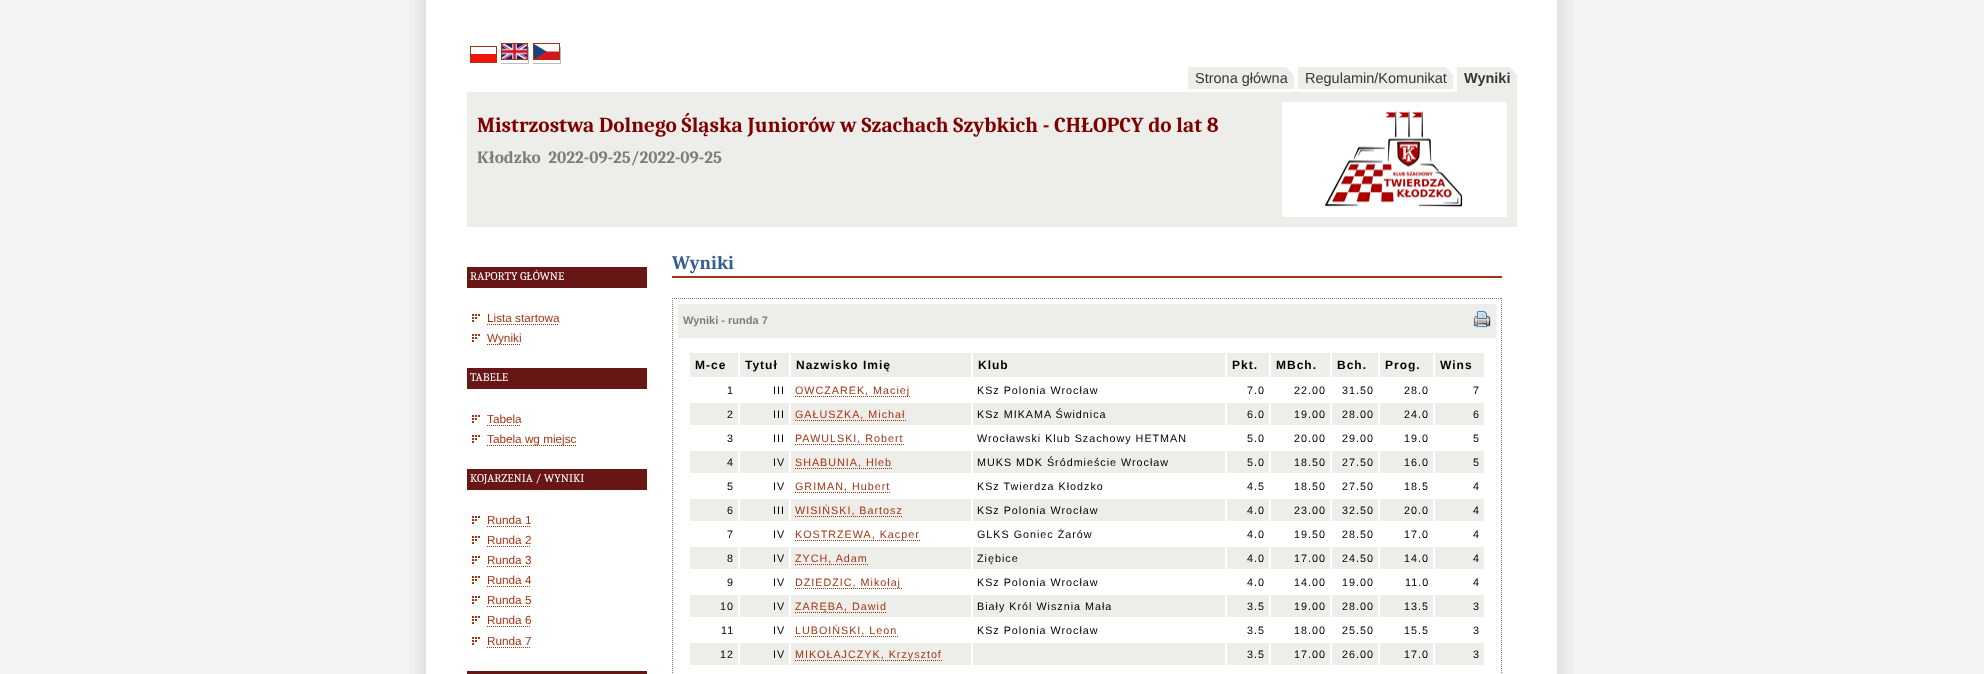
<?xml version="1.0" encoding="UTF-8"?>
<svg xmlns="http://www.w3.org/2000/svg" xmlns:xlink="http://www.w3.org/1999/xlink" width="1984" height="674">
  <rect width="100%" height="100%" fill="#f4f4f4" />
  <image x="409" y="0" width="1165" height="674" xlink:href="image1.png" />
  <rect x="470.5" y="46.5" width="26" height="16" fill="none" stroke="#a53512" />
  <rect x="471" y="54" width="25" height="8" fill="#f0140a" />
  <rect x="501.5" y="43.5" width="26" height="16" fill="none" stroke="#a53512" />
  <image x="502" y="44" width="25" height="15" xlink:href="image2.png" />
  <rect x="528" y="47" width="1" height="17" fill="#bbbbbb" />
  <rect x="501" y="63" width="28" height="1" fill="#bbbbbb" />
  <rect x="533.5" y="43.5" width="26" height="16" fill="none" stroke="#a53512" />
  <image x="534" y="44" width="25" height="15" xlink:href="image3.png" />
  <rect x="560" y="47" width="1" height="17" fill="#bbbbbb" />
  <rect x="533" y="63" width="28" height="1" fill="#bbbbbb" />
  <rect x="1188" y="67" width="106" height="22" fill="#edeeea" />
  <image x="1286" y="67" width="8" height="8" xlink:href="image4.png" />
  <rect x="1298" y="67" width="155" height="22" fill="#edeeea" />
  <image x="1445" y="67" width="8" height="8" xlink:href="image4.png" />
  <rect x="1457" y="67" width="60" height="25" fill="#edeeea" />
  <image x="1509" y="67" width="8" height="8" xlink:href="image4.png" />
  <rect x="467" y="92" width="1050" height="135" fill="#edeeea" />
  <image x="1282" y="102" width="225" height="115" xlink:href="image5.png" />
  <rect x="467" y="267" width="180" height="21" fill="#671515" />
  <image x="472" y="314" width="8" height="8" xlink:href="image6.png" />
  <path d="M 487 324.5 h 72" fill="none" stroke="#a53512" stroke-dasharray="1 1" />
  <image x="472" y="334" width="8" height="8" xlink:href="image6.png" />
  <path d="M 487 344.5 h 34" fill="none" stroke="#a53512" stroke-dasharray="1 1" />
  <rect x="467" y="368" width="180" height="21" fill="#671515" />
  <image x="472" y="415" width="8" height="8" xlink:href="image6.png" />
  <path d="M 487 425.5 h 34" fill="none" stroke="#a53512" stroke-dasharray="1 1" />
  <image x="472" y="435" width="8" height="8" xlink:href="image6.png" />
  <path d="M 487 445.5 h 89" fill="none" stroke="#a53512" stroke-dasharray="1 1" />
  <rect x="467" y="469" width="180" height="21" fill="#671515" />
  <image x="472" y="516" width="8" height="8" xlink:href="image6.png" />
  <path d="M 487 526.5 h 44" fill="none" stroke="#a53512" stroke-dasharray="1 1" />
  <image x="472" y="536" width="8" height="8" xlink:href="image6.png" />
  <path d="M 487 546.5 h 44" fill="none" stroke="#a53512" stroke-dasharray="1 1" />
  <image x="472" y="556" width="8" height="8" xlink:href="image6.png" />
  <path d="M 487 566.5 h 44" fill="none" stroke="#a53512" stroke-dasharray="1 1" />
  <image x="472" y="576" width="8" height="8" xlink:href="image6.png" />
  <path d="M 487 586.5 h 44" fill="none" stroke="#a53512" stroke-dasharray="1 1" />
  <image x="472" y="596" width="8" height="8" xlink:href="image6.png" />
  <path d="M 487 606.5 h 44" fill="none" stroke="#a53512" stroke-dasharray="1 1" />
  <image x="472" y="616" width="8" height="8" xlink:href="image6.png" />
  <path d="M 487 626.5 h 44" fill="none" stroke="#a53512" stroke-dasharray="1 1" />
  <image x="472" y="637" width="8" height="8" xlink:href="image6.png" />
  <path d="M 487 647.5 h 44" fill="none" stroke="#a53512" stroke-dasharray="1 1" />
  <rect x="467" y="671" width="180" height="3" fill="#671515" />
  <rect x="672" y="276" width="830" height="2" fill="#a53512" />
  <path d="M 672 298.5 h 830" fill="none" stroke="#807c7c" stroke-dasharray="1 1" />
  <path d="M 1501.5 298 v 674" fill="none" stroke="#807c7c" stroke-dasharray="1 1" />
  <path d="M 672.5 298 v 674" fill="none" stroke="#807c7c" stroke-dasharray="1 1" />
  <rect x="678" y="304" width="818" height="34" fill="#edeeea" />
  <image x="1473" y="311" width="18" height="17" xlink:href="image7.png" />
  <rect x="690" y="353" width="48" height="24" fill="#edeeea" />
  <rect x="740" y="353" width="49" height="24" fill="#edeeea" />
  <rect x="791" y="353" width="180" height="24" fill="#edeeea" />
  <rect x="973" y="353" width="252" height="24" fill="#edeeea" />
  <rect x="1227" y="353" width="42" height="24" fill="#edeeea" />
  <rect x="1271" y="353" width="59" height="24" fill="#edeeea" />
  <rect x="1332" y="353" width="46" height="24" fill="#edeeea" />
  <rect x="1380" y="353" width="53" height="24" fill="#edeeea" />
  <rect x="1435" y="353" width="49" height="24" fill="#edeeea" />
  <path d="M 795 396.5 h 116" fill="none" stroke="#a53512" stroke-dasharray="1 1" />
  <rect x="690" y="403" width="48" height="22" fill="#edeeea" />
  <rect x="740" y="403" width="49" height="22" fill="#edeeea" />
  <rect x="791" y="403" width="180" height="22" fill="#edeeea" />
  <path d="M 795 420.5 h 111" fill="none" stroke="#a53512" stroke-dasharray="1 1" />
  <rect x="973" y="403" width="252" height="22" fill="#edeeea" />
  <rect x="1227" y="403" width="42" height="22" fill="#edeeea" />
  <rect x="1271" y="403" width="59" height="22" fill="#edeeea" />
  <rect x="1332" y="403" width="46" height="22" fill="#edeeea" />
  <rect x="1380" y="403" width="53" height="22" fill="#edeeea" />
  <rect x="1435" y="403" width="49" height="22" fill="#edeeea" />
  <path d="M 795 444.5 h 109" fill="none" stroke="#a53512" stroke-dasharray="1 1" />
  <rect x="690" y="451" width="48" height="22" fill="#edeeea" />
  <rect x="740" y="451" width="49" height="22" fill="#edeeea" />
  <rect x="791" y="451" width="180" height="22" fill="#edeeea" />
  <path d="M 795 468.5 h 98" fill="none" stroke="#a53512" stroke-dasharray="1 1" />
  <rect x="973" y="451" width="252" height="22" fill="#edeeea" />
  <rect x="1227" y="451" width="42" height="22" fill="#edeeea" />
  <rect x="1271" y="451" width="59" height="22" fill="#edeeea" />
  <rect x="1332" y="451" width="46" height="22" fill="#edeeea" />
  <rect x="1380" y="451" width="53" height="22" fill="#edeeea" />
  <rect x="1435" y="451" width="49" height="22" fill="#edeeea" />
  <path d="M 795 492.5 h 96" fill="none" stroke="#a53512" stroke-dasharray="1 1" />
  <rect x="690" y="499" width="48" height="22" fill="#edeeea" />
  <rect x="740" y="499" width="49" height="22" fill="#edeeea" />
  <rect x="791" y="499" width="180" height="22" fill="#edeeea" />
  <path d="M 795 516.5 h 108" fill="none" stroke="#a53512" stroke-dasharray="1 1" />
  <rect x="973" y="499" width="252" height="22" fill="#edeeea" />
  <rect x="1227" y="499" width="42" height="22" fill="#edeeea" />
  <rect x="1271" y="499" width="59" height="22" fill="#edeeea" />
  <rect x="1332" y="499" width="46" height="22" fill="#edeeea" />
  <rect x="1380" y="499" width="53" height="22" fill="#edeeea" />
  <rect x="1435" y="499" width="49" height="22" fill="#edeeea" />
  <path d="M 795 540.5 h 125" fill="none" stroke="#a53512" stroke-dasharray="1 1" />
  <rect x="690" y="547" width="48" height="22" fill="#edeeea" />
  <rect x="740" y="547" width="49" height="22" fill="#edeeea" />
  <rect x="791" y="547" width="180" height="22" fill="#edeeea" />
  <path d="M 795 564.5 h 73" fill="none" stroke="#a53512" stroke-dasharray="1 1" />
  <rect x="973" y="547" width="252" height="22" fill="#edeeea" />
  <rect x="1227" y="547" width="42" height="22" fill="#edeeea" />
  <rect x="1271" y="547" width="59" height="22" fill="#edeeea" />
  <rect x="1332" y="547" width="46" height="22" fill="#edeeea" />
  <rect x="1380" y="547" width="53" height="22" fill="#edeeea" />
  <rect x="1435" y="547" width="49" height="22" fill="#edeeea" />
  <path d="M 795 588.5 h 107" fill="none" stroke="#a53512" stroke-dasharray="1 1" />
  <rect x="690" y="595" width="48" height="22" fill="#edeeea" />
  <rect x="740" y="595" width="49" height="22" fill="#edeeea" />
  <rect x="791" y="595" width="180" height="22" fill="#edeeea" />
  <path d="M 795 612.5 h 92" fill="none" stroke="#a53512" stroke-dasharray="1 1" />
  <rect x="973" y="595" width="252" height="22" fill="#edeeea" />
  <rect x="1227" y="595" width="42" height="22" fill="#edeeea" />
  <rect x="1271" y="595" width="59" height="22" fill="#edeeea" />
  <rect x="1332" y="595" width="46" height="22" fill="#edeeea" />
  <rect x="1380" y="595" width="53" height="22" fill="#edeeea" />
  <rect x="1435" y="595" width="49" height="22" fill="#edeeea" />
  <path d="M 795 636.5 h 103" fill="none" stroke="#a53512" stroke-dasharray="1 1" />
  <rect x="690" y="643" width="48" height="22" fill="#edeeea" />
  <rect x="740" y="643" width="49" height="22" fill="#edeeea" />
  <rect x="791" y="643" width="180" height="22" fill="#edeeea" />
  <path d="M 795 660.5 h 148" fill="none" stroke="#a53512" stroke-dasharray="1 1" />
  <rect x="973" y="643" width="252" height="22" fill="#edeeea" />
  <rect x="1227" y="643" width="42" height="22" fill="#edeeea" />
  <rect x="1271" y="643" width="59" height="22" fill="#edeeea" />
  <rect x="1332" y="643" width="46" height="22" fill="#edeeea" />
  <rect x="1380" y="643" width="53" height="22" fill="#edeeea" />
  <rect x="1435" y="643" width="49" height="22" fill="#edeeea" />
  <text x="1195" y="83" style="font-family: Liberation Sans; font-size: 14.5px; fill: #3d3535">Strona główna</text>
  <text x="1305" y="83" style="font-family: Liberation Sans; font-size: 14.5px; fill: #3d3535">Regulamin/Komunikat</text>
  <text x="1464" y="83" style="font-family: Liberation Sans; font-size: 14.5px; font-weight: bold; fill: #3d3535">Wyniki</text>
  <text x="477" y="132" style="font-family: Caladea; font-size: 21.35px; font-weight: bold; fill: #800000">Mistrzostwa Dolnego Śląska Juniorów w Szachach Szybkich - CHŁOPCY do lat 8</text>
  <text x="477" y="163" style="font-family: Caladea; font-size: 17.3px; font-weight: bold; fill: #807c7c" xml:space="preserve">Kłodzko  2022-09-25/2022-09-25</text>
  <text x="470" y="280" style="font-family: Caladea; font-size: 11.75px; fill: #ffffff">RAPORTY GŁÓWNE</text>
  <text x="487" y="322" style="font-family: Liberation Sans; font-size: 11.75px; fill: #a53512">Lista startowa</text>
  <text x="487" y="342" style="font-family: Liberation Sans; font-size: 11.75px; fill: #a53512">Wyniki</text>
  <text x="470" y="381" style="font-family: Caladea; font-size: 11.75px; fill: #ffffff">TABELE</text>
  <text x="487" y="423" style="font-family: Liberation Sans; font-size: 11.75px; fill: #a53512">Tabela</text>
  <text x="487" y="443" style="font-family: Liberation Sans; font-size: 11.75px; fill: #a53512">Tabela wg miejsc</text>
  <text x="470" y="482" style="font-family: Caladea; font-size: 11.75px; fill: #ffffff">KOJARZENIA / WYNIKI</text>
  <text x="487" y="524" style="font-family: Liberation Sans; font-size: 11.75px; fill: #a53512">Runda 1</text>
  <text x="487" y="544" style="font-family: Liberation Sans; font-size: 11.75px; fill: #a53512">Runda 2</text>
  <text x="487" y="564" style="font-family: Liberation Sans; font-size: 11.75px; fill: #a53512">Runda 3</text>
  <text x="487" y="584" style="font-family: Liberation Sans; font-size: 11.75px; fill: #a53512">Runda 4</text>
  <text x="487" y="604" style="font-family: Liberation Sans; font-size: 11.75px; fill: #a53512">Runda 5</text>
  <text x="487" y="624" style="font-family: Liberation Sans; font-size: 11.75px; fill: #a53512">Runda 6</text>
  <text x="487" y="645" style="font-family: Liberation Sans; font-size: 11.75px; fill: #a53512">Runda 7</text>
  <text x="672" y="269" style="font-family: Caladea; font-size: 19px; font-weight: bold; fill: #365f91">Wyniki</text>
  <text x="683" y="324" style="font-family: Liberation Sans; font-size: 11px; font-weight: bold; fill: #807c7c">Wyniki - runda 7</text>
  <text x="695" y="369" style="font-family: Liberation Sans; font-size: 12px; font-weight: bold; letter-spacing: 1px; fill: #000000">M-ce</text>
  <text x="745" y="369" style="font-family: Liberation Sans; font-size: 12px; font-weight: bold; letter-spacing: 1px; fill: #000000">Tytuł</text>
  <text x="796" y="369" style="font-family: Liberation Sans; font-size: 12px; font-weight: bold; letter-spacing: 1px; fill: #000000">Nazwisko Imię</text>
  <text x="978" y="369" style="font-family: Liberation Sans; font-size: 12px; font-weight: bold; letter-spacing: 1px; fill: #000000">Klub</text>
  <text x="1232" y="369" style="font-family: Liberation Sans; font-size: 12px; font-weight: bold; letter-spacing: 1px; fill: #000000">Pkt.</text>
  <text x="1276" y="369" style="font-family: Liberation Sans; font-size: 12px; font-weight: bold; letter-spacing: 1px; fill: #000000">MBch.</text>
  <text x="1337" y="369" style="font-family: Liberation Sans; font-size: 12px; font-weight: bold; letter-spacing: 1px; fill: #000000">Bch.</text>
  <text x="1385" y="369" style="font-family: Liberation Sans; font-size: 12px; font-weight: bold; letter-spacing: 1px; fill: #000000">Prog.</text>
  <text x="1440" y="369" style="font-family: Liberation Sans; font-size: 12px; font-weight: bold; letter-spacing: 1px; fill: #000000">Wins</text>
  <text x="727" y="394" style="font-family: Liberation Sans; font-size: 10.75px; letter-spacing: 1px; fill: #000000">1</text>
  <text x="773" y="394" style="font-family: Liberation Sans; font-size: 10.75px; letter-spacing: 1px; fill: #000000">III</text>
  <text x="795" y="394" style="font-family: Liberation Sans; font-size: 10.75px; letter-spacing: 1px; fill: #a53512">OWCZAREK, Maciej</text>
  <text x="977" y="394" style="font-family: Liberation Sans; font-size: 10.75px; letter-spacing: 1px; fill: #000000">KSz Polonia Wrocław</text>
  <text x="1247" y="394" style="font-family: Liberation Sans; font-size: 10.75px; letter-spacing: 1px; fill: #000000">7.0</text>
  <text x="1294" y="394" style="font-family: Liberation Sans; font-size: 10.75px; letter-spacing: 1px; fill: #000000">22.00</text>
  <text x="1342" y="394" style="font-family: Liberation Sans; font-size: 10.75px; letter-spacing: 1px; fill: #000000">31.50</text>
  <text x="1404" y="394" style="font-family: Liberation Sans; font-size: 10.75px; letter-spacing: 1px; fill: #000000">28.0</text>
  <text x="1473" y="394" style="font-family: Liberation Sans; font-size: 10.75px; letter-spacing: 1px; fill: #000000">7</text>
  <text x="727" y="418" style="font-family: Liberation Sans; font-size: 10.75px; letter-spacing: 1px; fill: #000000">2</text>
  <text x="773" y="418" style="font-family: Liberation Sans; font-size: 10.75px; letter-spacing: 1px; fill: #000000">III</text>
  <text x="795" y="418" style="font-family: Liberation Sans; font-size: 10.75px; letter-spacing: 1px; fill: #a53512">GAŁUSZKA, Michał</text>
  <text x="977" y="418" style="font-family: Liberation Sans; font-size: 10.75px; letter-spacing: 1px; fill: #000000">KSz MIKAMA Świdnica</text>
  <text x="1247" y="418" style="font-family: Liberation Sans; font-size: 10.75px; letter-spacing: 1px; fill: #000000">6.0</text>
  <text x="1294" y="418" style="font-family: Liberation Sans; font-size: 10.75px; letter-spacing: 1px; fill: #000000">19.00</text>
  <text x="1342" y="418" style="font-family: Liberation Sans; font-size: 10.75px; letter-spacing: 1px; fill: #000000">28.00</text>
  <text x="1404" y="418" style="font-family: Liberation Sans; font-size: 10.75px; letter-spacing: 1px; fill: #000000">24.0</text>
  <text x="1473" y="418" style="font-family: Liberation Sans; font-size: 10.75px; letter-spacing: 1px; fill: #000000">6</text>
  <text x="727" y="442" style="font-family: Liberation Sans; font-size: 10.75px; letter-spacing: 1px; fill: #000000">3</text>
  <text x="773" y="442" style="font-family: Liberation Sans; font-size: 10.75px; letter-spacing: 1px; fill: #000000">III</text>
  <text x="795" y="442" style="font-family: Liberation Sans; font-size: 10.75px; letter-spacing: 1px; fill: #a53512">PAWULSKI, Robert</text>
  <text x="977" y="442" style="font-family: Liberation Sans; font-size: 10.75px; letter-spacing: 1px; fill: #000000">Wrocławski Klub Szachowy HETMAN</text>
  <text x="1247" y="442" style="font-family: Liberation Sans; font-size: 10.75px; letter-spacing: 1px; fill: #000000">5.0</text>
  <text x="1294" y="442" style="font-family: Liberation Sans; font-size: 10.75px; letter-spacing: 1px; fill: #000000">20.00</text>
  <text x="1342" y="442" style="font-family: Liberation Sans; font-size: 10.75px; letter-spacing: 1px; fill: #000000">29.00</text>
  <text x="1404" y="442" style="font-family: Liberation Sans; font-size: 10.75px; letter-spacing: 1px; fill: #000000">19.0</text>
  <text x="1473" y="442" style="font-family: Liberation Sans; font-size: 10.75px; letter-spacing: 1px; fill: #000000">5</text>
  <text x="727" y="466" style="font-family: Liberation Sans; font-size: 10.75px; letter-spacing: 1px; fill: #000000">4</text>
  <text x="773" y="466" style="font-family: Liberation Sans; font-size: 10.75px; letter-spacing: 1px; fill: #000000">IV</text>
  <text x="795" y="466" style="font-family: Liberation Sans; font-size: 10.75px; letter-spacing: 1px; fill: #a53512">SHABUNIA, Hleb</text>
  <text x="977" y="466" style="font-family: Liberation Sans; font-size: 10.75px; letter-spacing: 1px; fill: #000000">MUKS MDK Śródmieście Wrocław</text>
  <text x="1247" y="466" style="font-family: Liberation Sans; font-size: 10.75px; letter-spacing: 1px; fill: #000000">5.0</text>
  <text x="1294" y="466" style="font-family: Liberation Sans; font-size: 10.75px; letter-spacing: 1px; fill: #000000">18.50</text>
  <text x="1342" y="466" style="font-family: Liberation Sans; font-size: 10.75px; letter-spacing: 1px; fill: #000000">27.50</text>
  <text x="1404" y="466" style="font-family: Liberation Sans; font-size: 10.75px; letter-spacing: 1px; fill: #000000">16.0</text>
  <text x="1473" y="466" style="font-family: Liberation Sans; font-size: 10.75px; letter-spacing: 1px; fill: #000000">5</text>
  <text x="727" y="490" style="font-family: Liberation Sans; font-size: 10.75px; letter-spacing: 1px; fill: #000000">5</text>
  <text x="773" y="490" style="font-family: Liberation Sans; font-size: 10.75px; letter-spacing: 1px; fill: #000000">IV</text>
  <text x="795" y="490" style="font-family: Liberation Sans; font-size: 10.75px; letter-spacing: 1px; fill: #a53512">GRIMAN, Hubert</text>
  <text x="977" y="490" style="font-family: Liberation Sans; font-size: 10.75px; letter-spacing: 1px; fill: #000000">KSz Twierdza Kłodzko</text>
  <text x="1247" y="490" style="font-family: Liberation Sans; font-size: 10.75px; letter-spacing: 1px; fill: #000000">4.5</text>
  <text x="1294" y="490" style="font-family: Liberation Sans; font-size: 10.75px; letter-spacing: 1px; fill: #000000">18.50</text>
  <text x="1342" y="490" style="font-family: Liberation Sans; font-size: 10.75px; letter-spacing: 1px; fill: #000000">27.50</text>
  <text x="1404" y="490" style="font-family: Liberation Sans; font-size: 10.75px; letter-spacing: 1px; fill: #000000">18.5</text>
  <text x="1473" y="490" style="font-family: Liberation Sans; font-size: 10.75px; letter-spacing: 1px; fill: #000000">4</text>
  <text x="727" y="514" style="font-family: Liberation Sans; font-size: 10.75px; letter-spacing: 1px; fill: #000000">6</text>
  <text x="773" y="514" style="font-family: Liberation Sans; font-size: 10.75px; letter-spacing: 1px; fill: #000000">III</text>
  <text x="795" y="514" style="font-family: Liberation Sans; font-size: 10.75px; letter-spacing: 1px; fill: #a53512">WISIŃSKI, Bartosz</text>
  <text x="977" y="514" style="font-family: Liberation Sans; font-size: 10.75px; letter-spacing: 1px; fill: #000000">KSz Polonia Wrocław</text>
  <text x="1247" y="514" style="font-family: Liberation Sans; font-size: 10.75px; letter-spacing: 1px; fill: #000000">4.0</text>
  <text x="1294" y="514" style="font-family: Liberation Sans; font-size: 10.75px; letter-spacing: 1px; fill: #000000">23.00</text>
  <text x="1342" y="514" style="font-family: Liberation Sans; font-size: 10.75px; letter-spacing: 1px; fill: #000000">32.50</text>
  <text x="1404" y="514" style="font-family: Liberation Sans; font-size: 10.75px; letter-spacing: 1px; fill: #000000">20.0</text>
  <text x="1473" y="514" style="font-family: Liberation Sans; font-size: 10.75px; letter-spacing: 1px; fill: #000000">4</text>
  <text x="727" y="538" style="font-family: Liberation Sans; font-size: 10.75px; letter-spacing: 1px; fill: #000000">7</text>
  <text x="773" y="538" style="font-family: Liberation Sans; font-size: 10.75px; letter-spacing: 1px; fill: #000000">IV</text>
  <text x="795" y="538" style="font-family: Liberation Sans; font-size: 10.75px; letter-spacing: 1px; fill: #a53512">KOSTRZEWA, Kacper</text>
  <text x="977" y="538" style="font-family: Liberation Sans; font-size: 10.75px; letter-spacing: 1px; fill: #000000">GLKS Goniec Żarów</text>
  <text x="1247" y="538" style="font-family: Liberation Sans; font-size: 10.75px; letter-spacing: 1px; fill: #000000">4.0</text>
  <text x="1294" y="538" style="font-family: Liberation Sans; font-size: 10.75px; letter-spacing: 1px; fill: #000000">19.50</text>
  <text x="1342" y="538" style="font-family: Liberation Sans; font-size: 10.75px; letter-spacing: 1px; fill: #000000">28.50</text>
  <text x="1404" y="538" style="font-family: Liberation Sans; font-size: 10.75px; letter-spacing: 1px; fill: #000000">17.0</text>
  <text x="1473" y="538" style="font-family: Liberation Sans; font-size: 10.75px; letter-spacing: 1px; fill: #000000">4</text>
  <text x="727" y="562" style="font-family: Liberation Sans; font-size: 10.75px; letter-spacing: 1px; fill: #000000">8</text>
  <text x="773" y="562" style="font-family: Liberation Sans; font-size: 10.75px; letter-spacing: 1px; fill: #000000">IV</text>
  <text x="795" y="562" style="font-family: Liberation Sans; font-size: 10.75px; letter-spacing: 1px; fill: #a53512">ZYCH, Adam</text>
  <text x="977" y="562" style="font-family: Liberation Sans; font-size: 10.75px; letter-spacing: 1px; fill: #000000">Ziębice</text>
  <text x="1247" y="562" style="font-family: Liberation Sans; font-size: 10.75px; letter-spacing: 1px; fill: #000000">4.0</text>
  <text x="1294" y="562" style="font-family: Liberation Sans; font-size: 10.75px; letter-spacing: 1px; fill: #000000">17.00</text>
  <text x="1342" y="562" style="font-family: Liberation Sans; font-size: 10.75px; letter-spacing: 1px; fill: #000000">24.50</text>
  <text x="1404" y="562" style="font-family: Liberation Sans; font-size: 10.75px; letter-spacing: 1px; fill: #000000">14.0</text>
  <text x="1473" y="562" style="font-family: Liberation Sans; font-size: 10.75px; letter-spacing: 1px; fill: #000000">4</text>
  <text x="727" y="586" style="font-family: Liberation Sans; font-size: 10.75px; letter-spacing: 1px; fill: #000000">9</text>
  <text x="773" y="586" style="font-family: Liberation Sans; font-size: 10.75px; letter-spacing: 1px; fill: #000000">IV</text>
  <text x="795" y="586" style="font-family: Liberation Sans; font-size: 10.75px; letter-spacing: 1px; fill: #a53512">DZIEDZIC, Mikołaj</text>
  <text x="977" y="586" style="font-family: Liberation Sans; font-size: 10.75px; letter-spacing: 1px; fill: #000000">KSz Polonia Wrocław</text>
  <text x="1247" y="586" style="font-family: Liberation Sans; font-size: 10.75px; letter-spacing: 1px; fill: #000000">4.0</text>
  <text x="1294" y="586" style="font-family: Liberation Sans; font-size: 10.75px; letter-spacing: 1px; fill: #000000">14.00</text>
  <text x="1342" y="586" style="font-family: Liberation Sans; font-size: 10.75px; letter-spacing: 1px; fill: #000000">19.00</text>
  <text x="1405" y="586" style="font-family: Liberation Sans; font-size: 10.75px; letter-spacing: 1px; fill: #000000">11.0</text>
  <text x="1473" y="586" style="font-family: Liberation Sans; font-size: 10.75px; letter-spacing: 1px; fill: #000000">4</text>
  <text x="720" y="610" style="font-family: Liberation Sans; font-size: 10.75px; letter-spacing: 1px; fill: #000000">10</text>
  <text x="773" y="610" style="font-family: Liberation Sans; font-size: 10.75px; letter-spacing: 1px; fill: #000000">IV</text>
  <text x="795" y="610" style="font-family: Liberation Sans; font-size: 10.75px; letter-spacing: 1px; fill: #a53512">ZARĘBA, Dawid</text>
  <text x="977" y="610" style="font-family: Liberation Sans; font-size: 10.75px; letter-spacing: 1px; fill: #000000">Biały Król Wisznia Mała</text>
  <text x="1247" y="610" style="font-family: Liberation Sans; font-size: 10.75px; letter-spacing: 1px; fill: #000000">3.5</text>
  <text x="1294" y="610" style="font-family: Liberation Sans; font-size: 10.75px; letter-spacing: 1px; fill: #000000">19.00</text>
  <text x="1342" y="610" style="font-family: Liberation Sans; font-size: 10.75px; letter-spacing: 1px; fill: #000000">28.00</text>
  <text x="1404" y="610" style="font-family: Liberation Sans; font-size: 10.75px; letter-spacing: 1px; fill: #000000">13.5</text>
  <text x="1473" y="610" style="font-family: Liberation Sans; font-size: 10.75px; letter-spacing: 1px; fill: #000000">3</text>
  <text x="721" y="634" style="font-family: Liberation Sans; font-size: 10.75px; letter-spacing: 1px; fill: #000000">11</text>
  <text x="773" y="634" style="font-family: Liberation Sans; font-size: 10.75px; letter-spacing: 1px; fill: #000000">IV</text>
  <text x="795" y="634" style="font-family: Liberation Sans; font-size: 10.75px; letter-spacing: 1px; fill: #a53512">LUBOIŃSKI, Leon</text>
  <text x="977" y="634" style="font-family: Liberation Sans; font-size: 10.75px; letter-spacing: 1px; fill: #000000">KSz Polonia Wrocław</text>
  <text x="1247" y="634" style="font-family: Liberation Sans; font-size: 10.75px; letter-spacing: 1px; fill: #000000">3.5</text>
  <text x="1294" y="634" style="font-family: Liberation Sans; font-size: 10.75px; letter-spacing: 1px; fill: #000000">18.00</text>
  <text x="1342" y="634" style="font-family: Liberation Sans; font-size: 10.75px; letter-spacing: 1px; fill: #000000">25.50</text>
  <text x="1404" y="634" style="font-family: Liberation Sans; font-size: 10.75px; letter-spacing: 1px; fill: #000000">15.5</text>
  <text x="1473" y="634" style="font-family: Liberation Sans; font-size: 10.75px; letter-spacing: 1px; fill: #000000">3</text>
  <text x="720" y="658" style="font-family: Liberation Sans; font-size: 10.75px; letter-spacing: 1px; fill: #000000">12</text>
  <text x="773" y="658" style="font-family: Liberation Sans; font-size: 10.75px; letter-spacing: 1px; fill: #000000">IV</text>
  <text x="795" y="658" style="font-family: Liberation Sans; font-size: 10.75px; letter-spacing: 1px; fill: #a53512">MIKOŁAJCZYK, Krzysztof</text>
  <text x="1247" y="658" style="font-family: Liberation Sans; font-size: 10.75px; letter-spacing: 1px; fill: #000000">3.5</text>
  <text x="1294" y="658" style="font-family: Liberation Sans; font-size: 10.75px; letter-spacing: 1px; fill: #000000">17.00</text>
  <text x="1342" y="658" style="font-family: Liberation Sans; font-size: 10.75px; letter-spacing: 1px; fill: #000000">26.00</text>
  <text x="1404" y="658" style="font-family: Liberation Sans; font-size: 10.75px; letter-spacing: 1px; fill: #000000">17.0</text>
  <text x="1473" y="658" style="font-family: Liberation Sans; font-size: 10.75px; letter-spacing: 1px; fill: #000000">3</text>
</svg>
